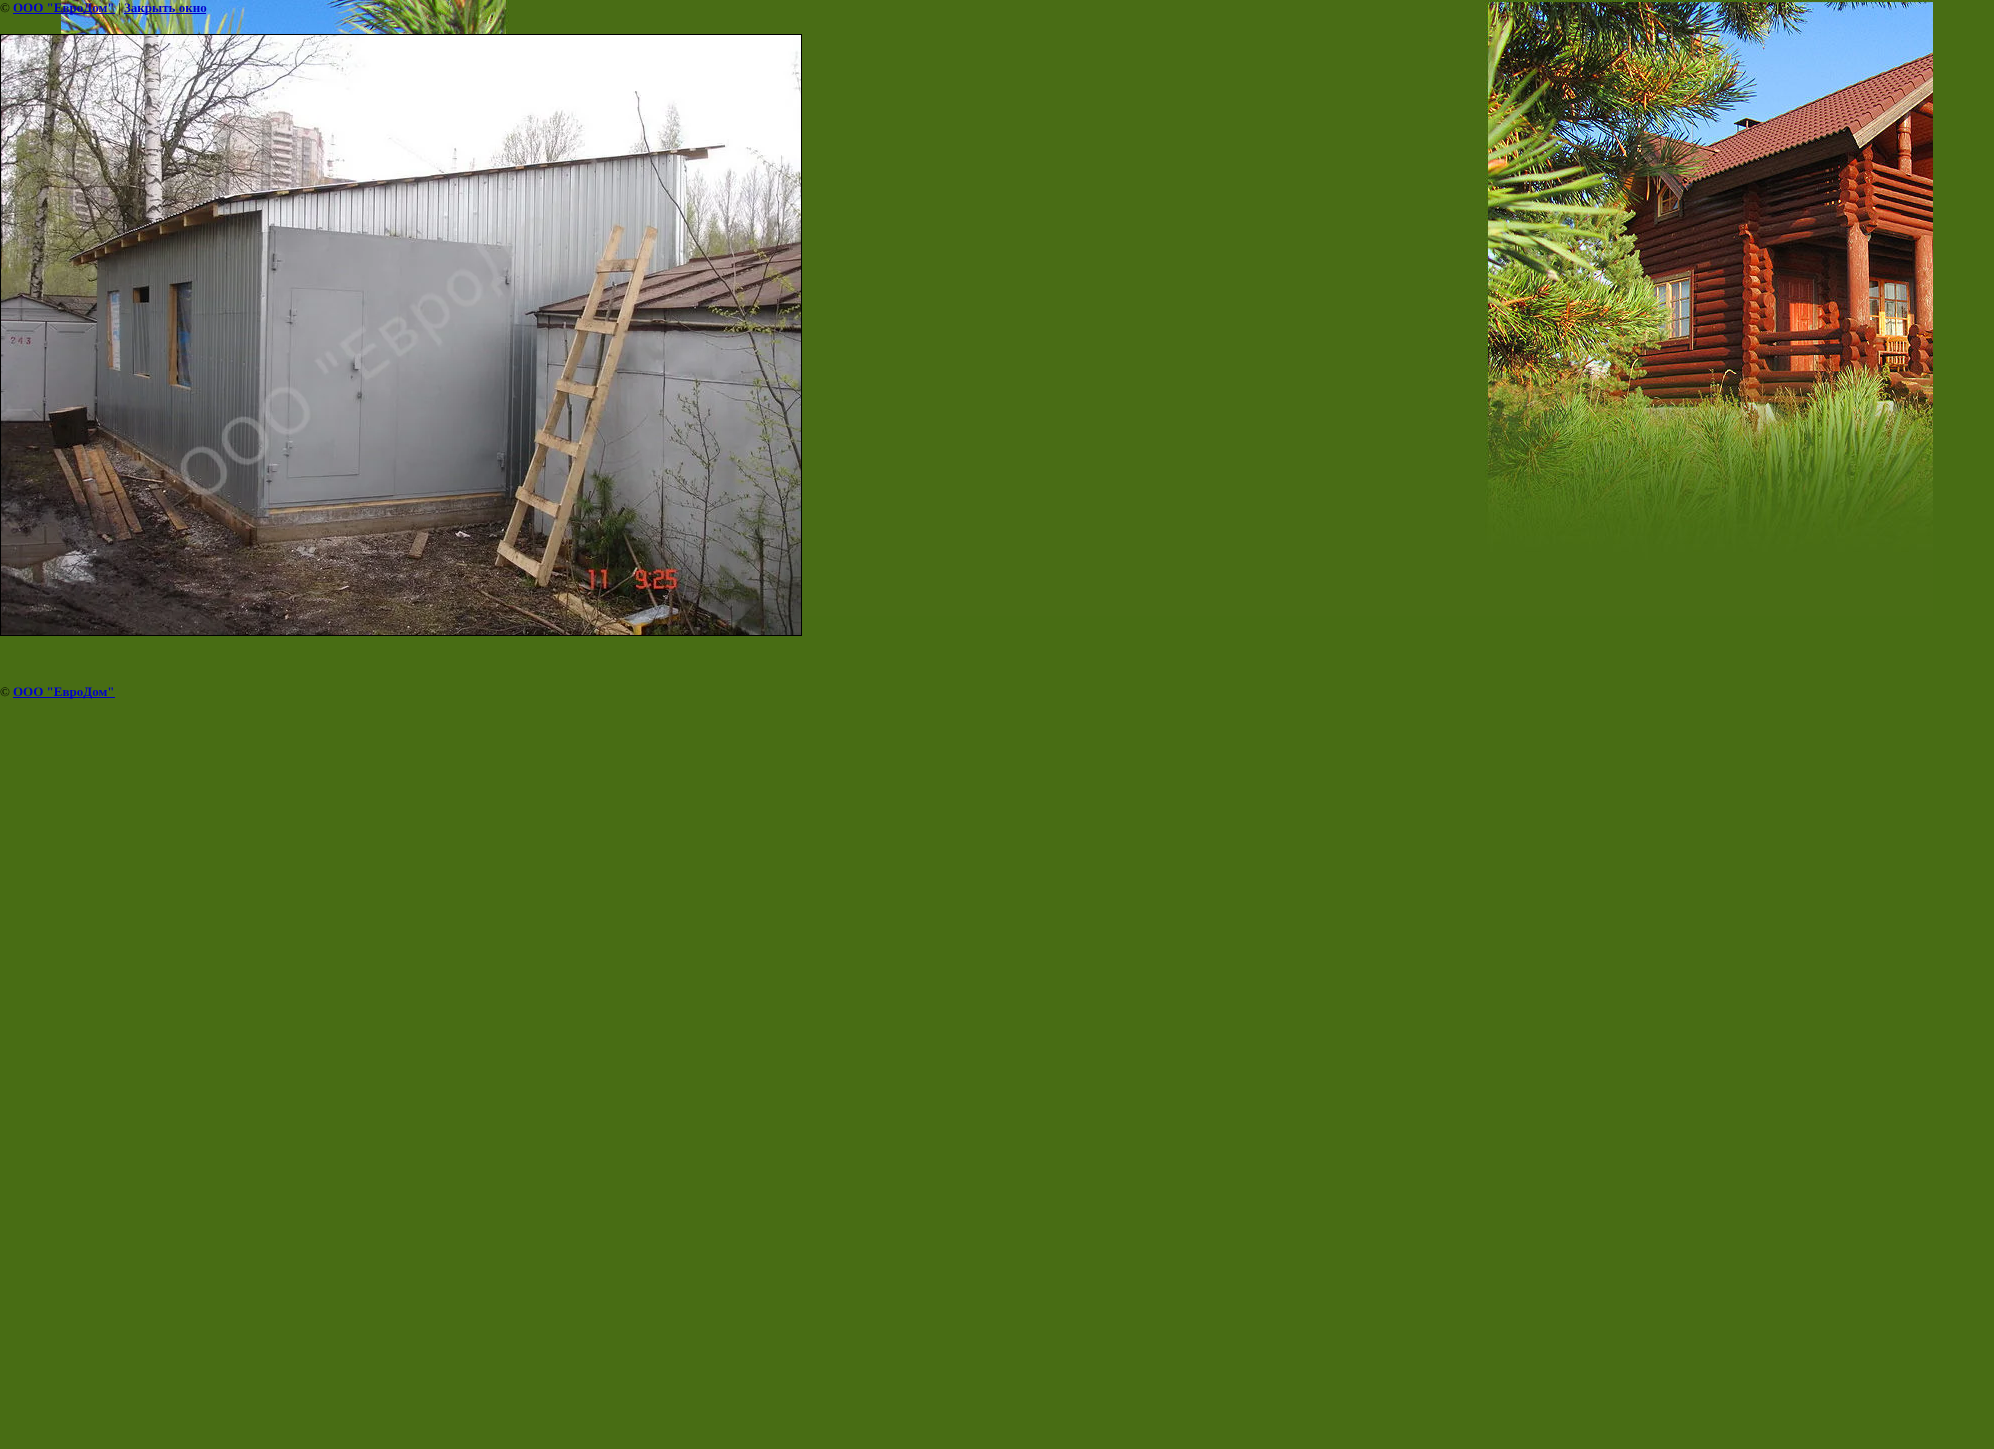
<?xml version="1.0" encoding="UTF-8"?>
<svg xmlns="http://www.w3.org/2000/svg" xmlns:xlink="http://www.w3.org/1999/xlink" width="1994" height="1449">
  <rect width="100%" height="100%" fill="#486d14" />
  <image x="61" y="0" width="1872" height="616" xlink:href="image1.png" />
  <rect x="13" y="13" width="102" height="1" fill="#0000cc" />
  <rect x="124" y="13" width="82" height="1" fill="#0000cc" />
  <rect x="0.5" y="34.5" width="801" height="601" fill="none" stroke="#000000" />
  <image x="1" y="35" width="800" height="600" xlink:href="image2.png" />
  <rect x="13" y="697" width="102" height="1" fill="#0000cc" />
  <text x="0" y="12" style="font-family: Liberation Serif; font-size: 13px; fill: #000000">©</text>
  <text x="13" y="12" style="font-family: Liberation Serif; font-size: 13px; font-weight: bold; fill: #0000cc">ООО "ЕвроДом"</text>
  <text x="118" y="12" style="font-family: Liberation Serif; font-size: 13px; fill: #000000">|</text>
  <text x="124" y="12" style="font-family: Liberation Serif; font-size: 13px; font-weight: bold; fill: #0000cc">Закрыть окно</text>
  <text x="0" y="696" style="font-family: Liberation Serif; font-size: 13px; fill: #000000">©</text>
  <text x="13" y="696" style="font-family: Liberation Serif; font-size: 13px; font-weight: bold; fill: #0000cc">ООО "ЕвроДом"</text>
</svg>
